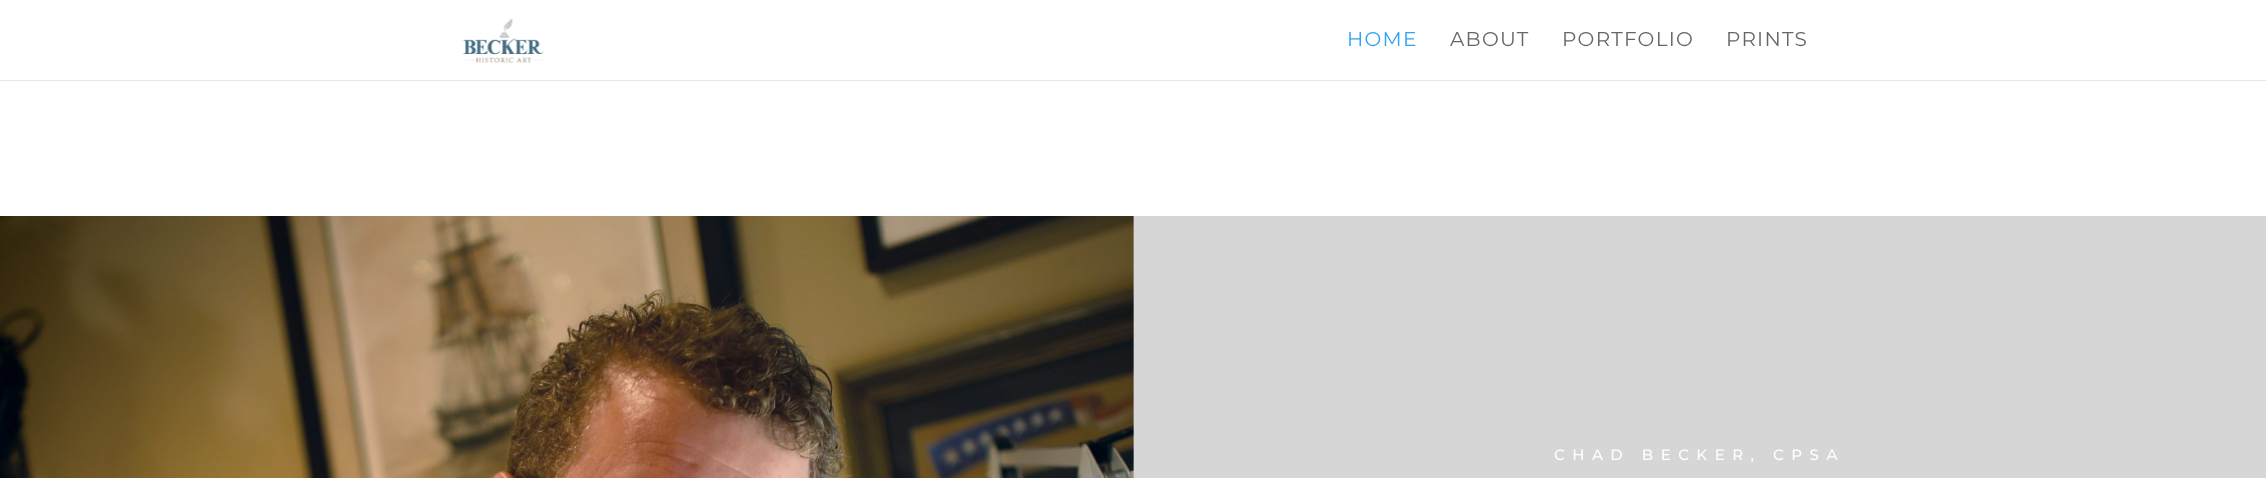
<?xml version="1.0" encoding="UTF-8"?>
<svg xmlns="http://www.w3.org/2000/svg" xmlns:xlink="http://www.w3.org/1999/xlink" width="2266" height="478">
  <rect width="100%" height="100%" fill="#ffffff" />
  <rect y="80" width="2266" height="1" fill="#e6e6e6" />
  <image x="462" y="18" width="83" height="45" xlink:href="image1.png" />
  <image x="0" y="216" width="1134" height="262" xlink:href="image2.png" />
  <rect x="1134" y="216" width="1132" height="262" fill="#d6d6d6" />
  <text x="1347" y="46" style="font-family: Montserrat; font-size: 20px; letter-spacing: 1.25px; fill: #2ea3f2">HOME</text>
  <text x="1450" y="46" style="font-family: Montserrat; font-size: 20px; letter-spacing: 1.25px; fill: #666666">ABOUT</text>
  <text x="1562" y="46" style="font-family: Montserrat; font-size: 20px; letter-spacing: 1.25px; fill: #666666">PORTFOLIO</text>
  <text x="1726" y="46" style="font-family: Montserrat; font-size: 20px; letter-spacing: 1.25px; fill: #666666">PRINTS</text>
  <text x="1554" y="460" style="font-family: Montserrat; font-size: 15px; font-weight: 500; letter-spacing: 7.5px; fill: #ffffff">CHAD BECKER, CPSA</text>
</svg>
